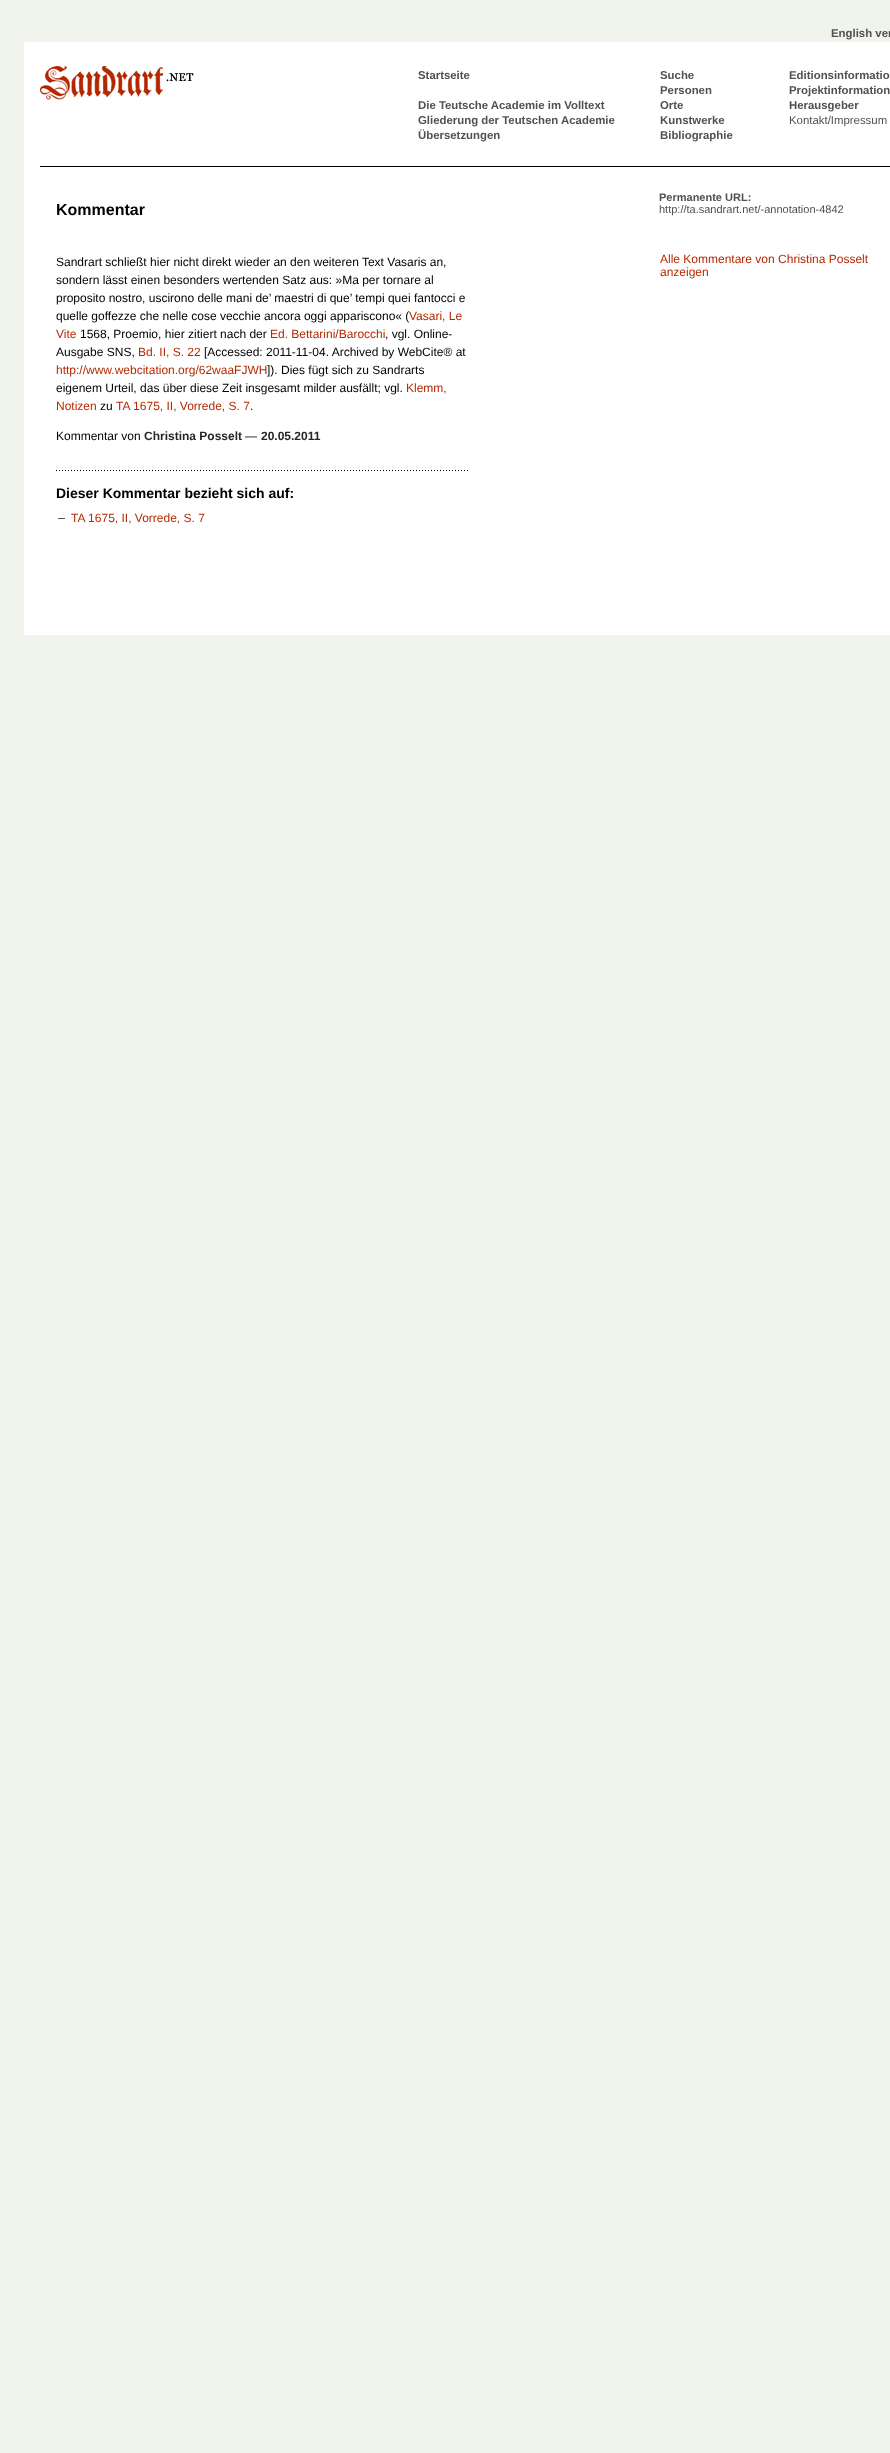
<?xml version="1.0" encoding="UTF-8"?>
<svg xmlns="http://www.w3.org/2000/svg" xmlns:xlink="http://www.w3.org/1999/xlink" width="890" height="2453">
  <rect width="100%" height="100%" fill="#f1f3ed" />
  <rect x="24" y="42" width="866" height="593" fill="#ffffff" />
  <rect x="40" y="166" width="850" height="1" fill="#000000" />
  <image x="40" y="66" width="154" height="34" xlink:href="image1.png" />
  <image x="56" y="470" width="412" height="1" xlink:href="image2.png" />
  <rect x="58" y="518" width="7" height="1" fill="#575757" />
  <text x="831" y="37" style="font-family: Liberation Sans; font-size: 11.4px; font-weight: bold; fill: #505050">English ver</text>
  <text x="418" y="79" style="font-family: Liberation Sans; font-size: 11.4px; font-weight: bold; fill: #505050">Startseite</text>
  <text x="660" y="79" style="font-family: Liberation Sans; font-size: 11.4px; font-weight: bold; fill: #505050">Suche</text>
  <text x="789" y="79" style="font-family: Liberation Sans; font-size: 11.4px; font-weight: bold; fill: #505050">Editionsinformatio</text>
  <text x="660" y="94" style="font-family: Liberation Sans; font-size: 11.4px; font-weight: bold; fill: #505050">Personen</text>
  <text x="789" y="94" style="font-family: Liberation Sans; font-size: 11.4px; font-weight: bold; fill: #505050">Projektinformation</text>
  <text x="418" y="109" style="font-family: Liberation Sans; font-size: 11.4px; font-weight: bold; fill: #505050">Die Teutsche Academie im Volltext</text>
  <text x="660" y="109" style="font-family: Liberation Sans; font-size: 11.4px; font-weight: bold; fill: #505050">Orte</text>
  <text x="789" y="109" style="font-family: Liberation Sans; font-size: 11.4px; font-weight: bold; fill: #505050">Herausgeber</text>
  <text x="418" y="124" style="font-family: Liberation Sans; font-size: 11.4px; font-weight: bold; fill: #505050">Gliederung der Teutschen Academie</text>
  <text x="660" y="124" style="font-family: Liberation Sans; font-size: 11.4px; font-weight: bold; fill: #505050">Kunstwerke</text>
  <text x="789" y="124" style="font-family: Liberation Sans; font-size: 11.4px; fill: #505050">Kontakt/Impressum</text>
  <text x="418" y="139" style="font-family: Liberation Sans; font-size: 11.4px; font-weight: bold; fill: #505050">Übersetzungen</text>
  <text x="660" y="139" style="font-family: Liberation Sans; font-size: 11.4px; font-weight: bold; fill: #505050">Bibliographie</text>
  <text x="56" y="215" style="font-family: Liberation Sans; font-size: 16px; font-weight: bold; fill: #000000">Kommentar</text>
  <text x="659" y="201" style="font-family: Liberation Sans; font-size: 11px; font-weight: bold; fill: #505050">Permanente URL:</text>
  <text x="659" y="213" style="font-family: Liberation Sans; font-size: 11px; fill: #505050">http://ta.sandrart.net/-annotation-4842</text>
  <text x="56" y="266" style="font-family: Liberation Sans; font-size: 12px; fill: #000000">Sandrart schließt hier nicht direkt wieder an den weiteren Text Vasaris an,</text>
  <text x="56" y="284" style="font-family: Liberation Sans; font-size: 12px; fill: #000000">sondern lässt einen besonders wertenden Satz aus: »Ma per tornare al</text>
  <text x="56" y="302" style="font-family: Liberation Sans; font-size: 12px; fill: #000000">proposito nostro, uscirono delle mani de’ maestri di que’ tempi quei fantocci e</text>
  <text x="56" y="320" style="font-family: Liberation Sans; font-size: 12px; fill: #000000">quelle goffezze che nelle cose vecchie ancora oggi appariscono« (</text>
  <text x="409" y="320" style="font-family: Liberation Sans; font-size: 12px; fill: #b52900">Vasari, Le</text>
  <text x="56" y="338" style="font-family: Liberation Sans; font-size: 12px; fill: #b52900">Vite</text>
  <text x="80" y="338" style="font-family: Liberation Sans; font-size: 12px; fill: #000000">1568, Proemio, hier zitiert nach der</text>
  <text x="270" y="338" style="font-family: Liberation Sans; font-size: 12px; fill: #b52900">Ed. Bettarini/Barocchi</text>
  <text x="385" y="338" style="font-family: Liberation Sans; font-size: 12px; fill: #000000">, vgl. Online-</text>
  <text x="56" y="356" style="font-family: Liberation Sans; font-size: 12px; fill: #000000">Ausgabe SNS,</text>
  <text x="138" y="356" style="font-family: Liberation Sans; font-size: 12px; fill: #b52900">Bd. II, S. 22</text>
  <text x="204" y="356" style="font-family: Liberation Sans; font-size: 12px; fill: #000000">[Accessed: 2011-11-04. Archived by WebCite® at</text>
  <text x="56" y="374" style="font-family: Liberation Sans; font-size: 12px; fill: #b52900">http://www.webcitation.org/62waaFJWH</text>
  <text x="267" y="374" style="font-family: Liberation Sans; font-size: 12px; fill: #000000">]). Dies fügt sich zu Sandrarts</text>
  <text x="56" y="392" style="font-family: Liberation Sans; font-size: 12px; fill: #000000">eigenem Urteil, das über diese Zeit insgesamt milder ausfällt; vgl.</text>
  <text x="406" y="392" style="font-family: Liberation Sans; font-size: 12px; fill: #b52900">Klemm,</text>
  <text x="56" y="410" style="font-family: Liberation Sans; font-size: 12px; fill: #b52900">Notizen</text>
  <text x="100" y="410" style="font-family: Liberation Sans; font-size: 12px; fill: #000000">zu</text>
  <text x="116" y="410" style="font-family: Liberation Sans; font-size: 12px; fill: #b52900">TA 1675, II, Vorrede, S. 7</text>
  <text x="250" y="410" style="font-family: Liberation Sans; font-size: 12px; fill: #000000">.</text>
  <text x="660" y="263" style="font-family: Liberation Sans; font-size: 12px; fill: #b52900">Alle Kommentare von Christina Posselt</text>
  <text x="660" y="276" style="font-family: Liberation Sans; font-size: 12px; fill: #b52900">anzeigen</text>
  <text x="56" y="440" style="font-family: Liberation Sans; font-size: 12px; fill: #000000">Kommentar von</text>
  <text x="144" y="440" style="font-family: Liberation Sans; font-size: 12px; font-weight: bold; fill: #262626">Christina Posselt</text>
  <text x="245" y="440" style="font-family: Liberation Sans; font-size: 12px; fill: #000000">—</text>
  <text x="261" y="440" style="font-family: Liberation Sans; font-size: 12px; font-weight: bold; fill: #262626">20.05.2011</text>
  <text x="56" y="498" style="font-family: Liberation Sans; font-size: 14px; font-weight: bold; fill: #000000">Dieser Kommentar bezieht sich auf:</text>
  <text x="71" y="522" style="font-family: Liberation Sans; font-size: 12px; fill: #b52900">TA 1675, II, Vorrede, S. 7</text>
</svg>
